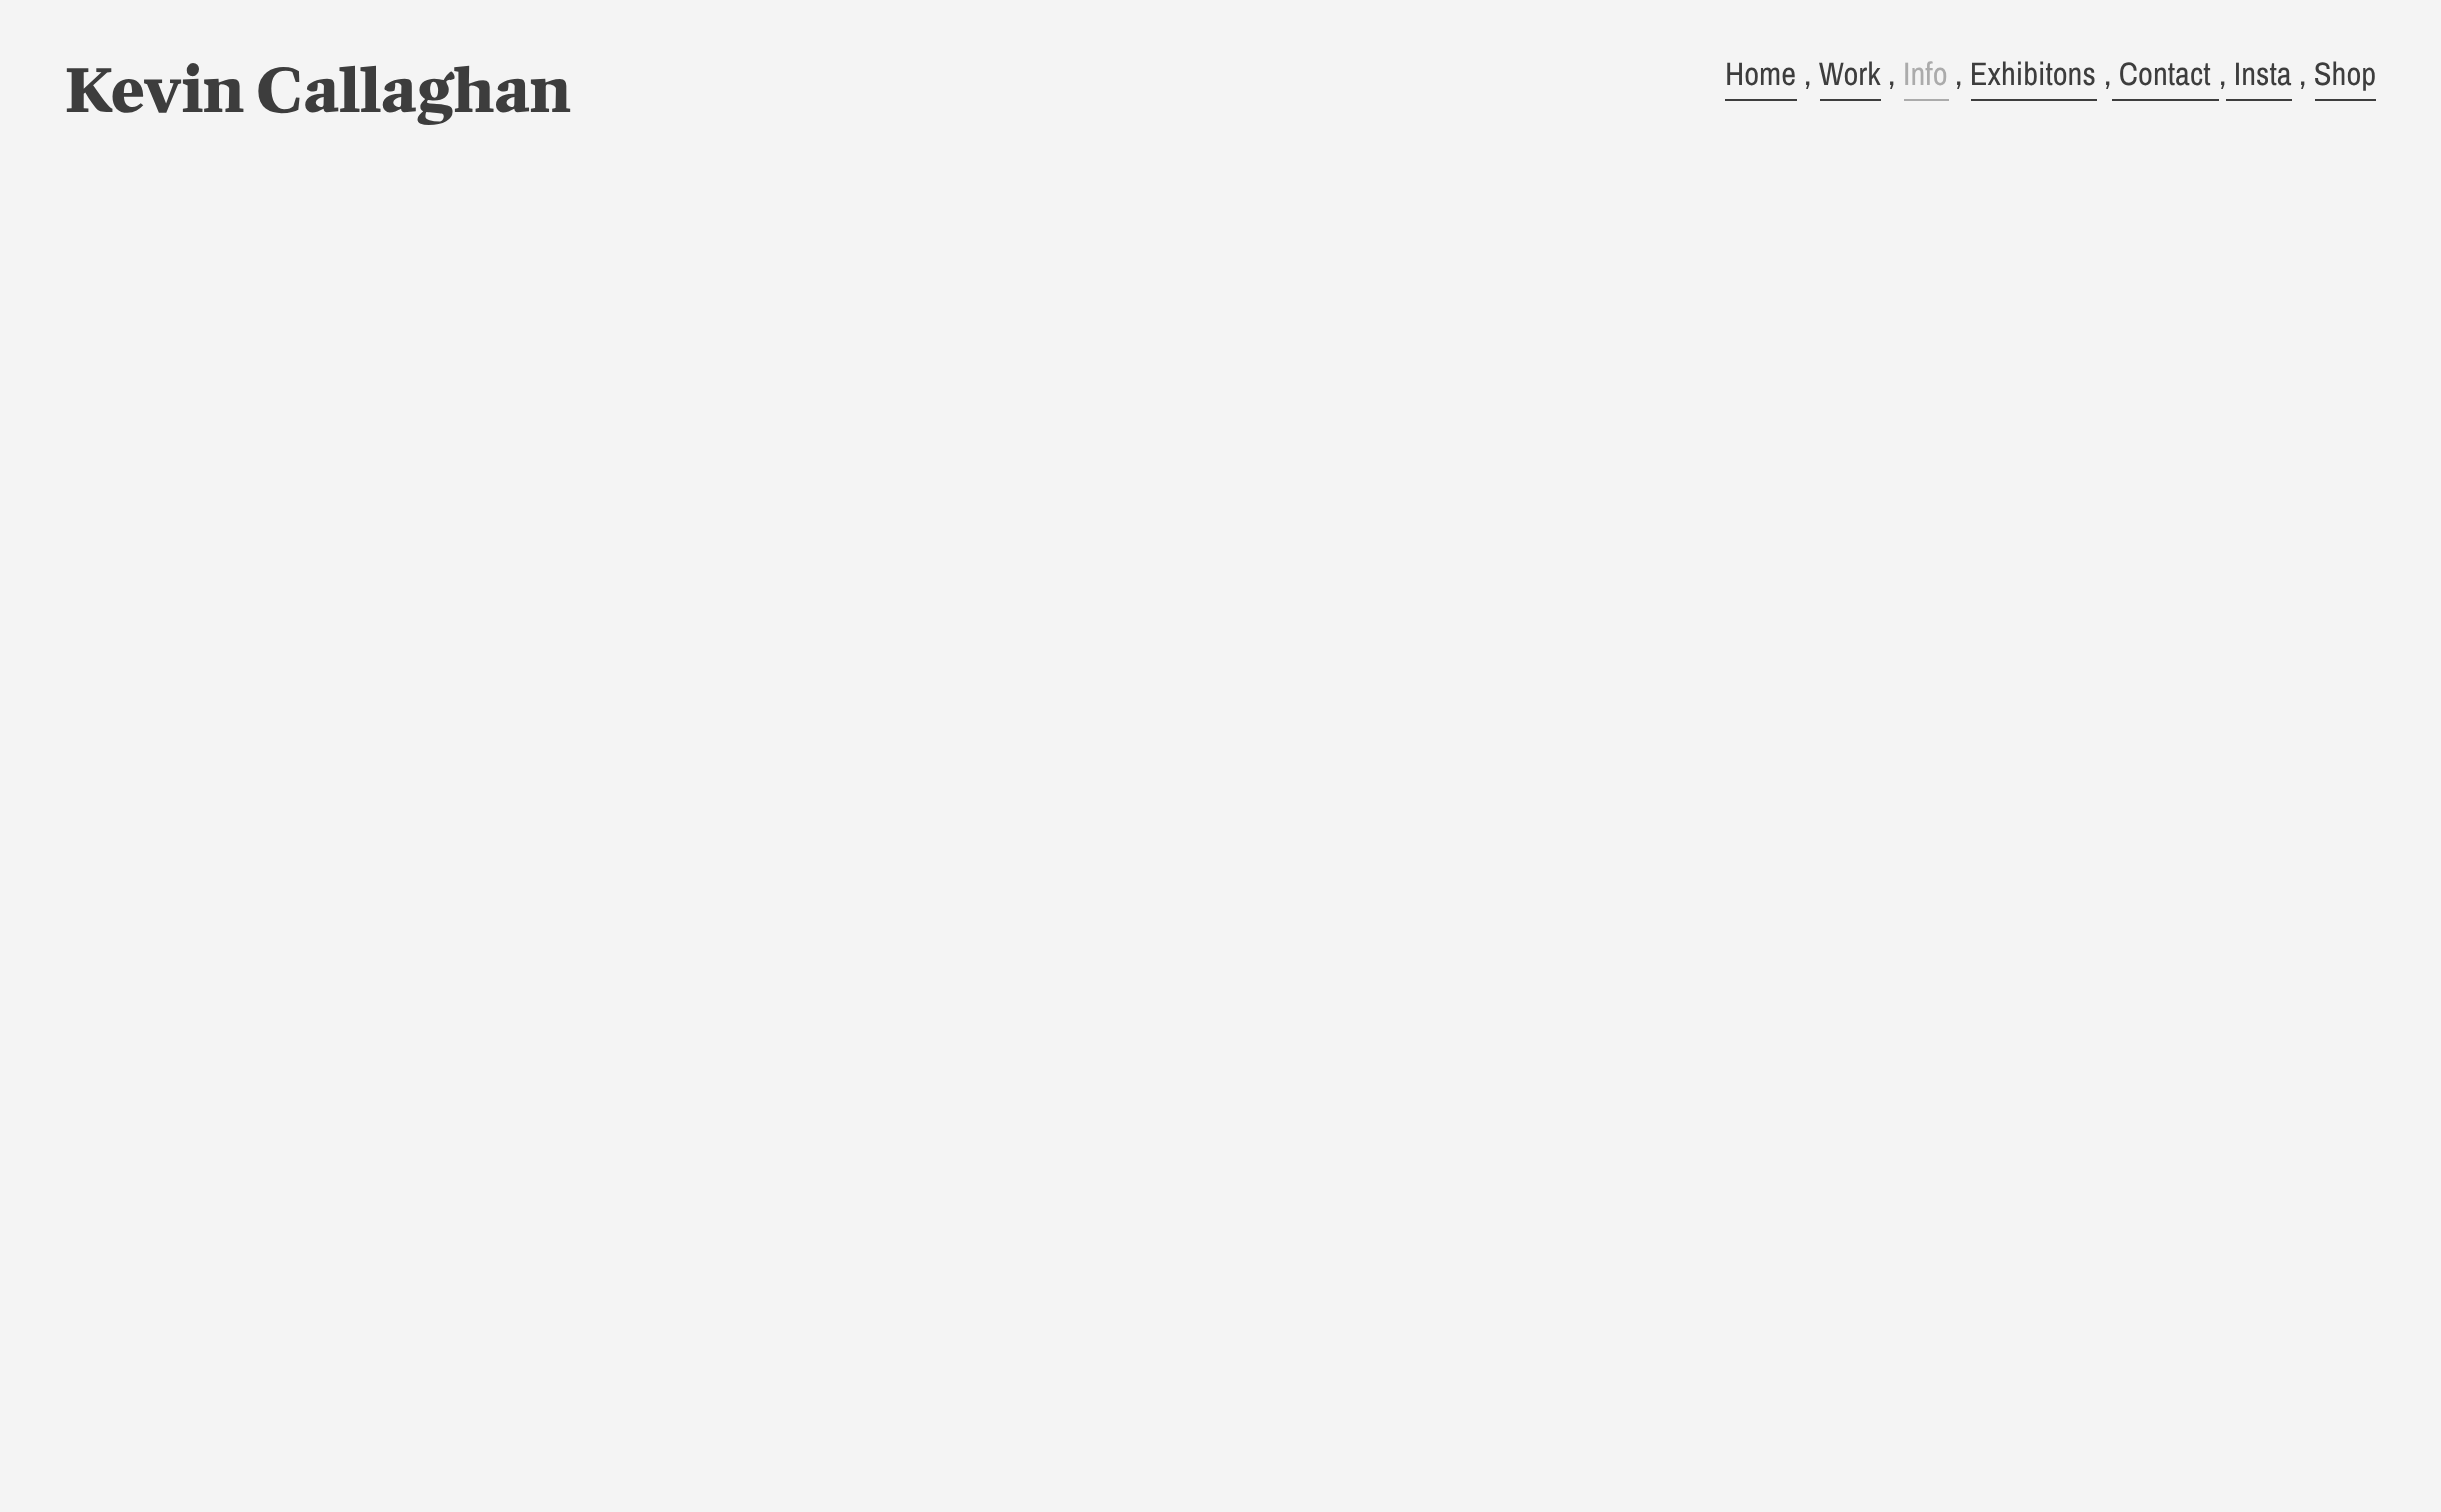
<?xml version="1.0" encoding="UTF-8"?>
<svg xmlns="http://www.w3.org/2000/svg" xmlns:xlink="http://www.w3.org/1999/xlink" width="2441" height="1512">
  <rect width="100%" height="100%" fill="#f4f4f4" />
  <rect x="1725" y="99" width="72" height="2" fill="#3d3d3d" />
  <rect x="1904" y="99" width="45" height="2" fill="#ababab" />
  <rect x="1820" y="99" width="61" height="2" fill="#3d3d3d" />
  <rect x="1971" y="99" width="126" height="2" fill="#3d3d3d" />
  <rect x="2112" y="99" width="107" height="2" fill="#3d3d3d" />
  <rect x="2226" y="99" width="66" height="2" fill="#3d3d3d" />
  <rect x="2315" y="99" width="61" height="2" fill="#3d3d3d" />
  <text x="65" y="112" style="font-family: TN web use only; font-size: 63.25px; font-weight: bold; fill: #3d3d3d">Kevin Callaghan</text>
  <text x="1725" y="85" style="font-family: Archivo Narrow; font-size: 32.5px; fill: #3d3d3d">Home</text>
  <text x="1804" y="85" style="font-family: Archivo Narrow; font-size: 32.5px; fill: #3d3d3d">, Work</text>
  <text x="1888" y="85" style="font-family: Archivo Narrow; font-size: 32.5px; fill: #3d3d3d">,</text>
  <text x="1903" y="85" style="font-family: Archivo Narrow; font-size: 32.5px; fill: #ababab">Info</text>
  <text x="1955" y="85" style="font-family: Archivo Narrow; font-size: 32.5px; fill: #3d3d3d">, Exhibitons</text>
  <text x="2104" y="85" style="font-family: Archivo Narrow; font-size: 32.5px; fill: #3d3d3d">, Contact</text>
  <text x="2219" y="85" style="font-family: Archivo Narrow; font-size: 32.5px; fill: #3d3d3d">, Insta</text>
  <text x="2299" y="85" style="font-family: Archivo Narrow; font-size: 32.5px; fill: #3d3d3d">, Shop</text>
</svg>
